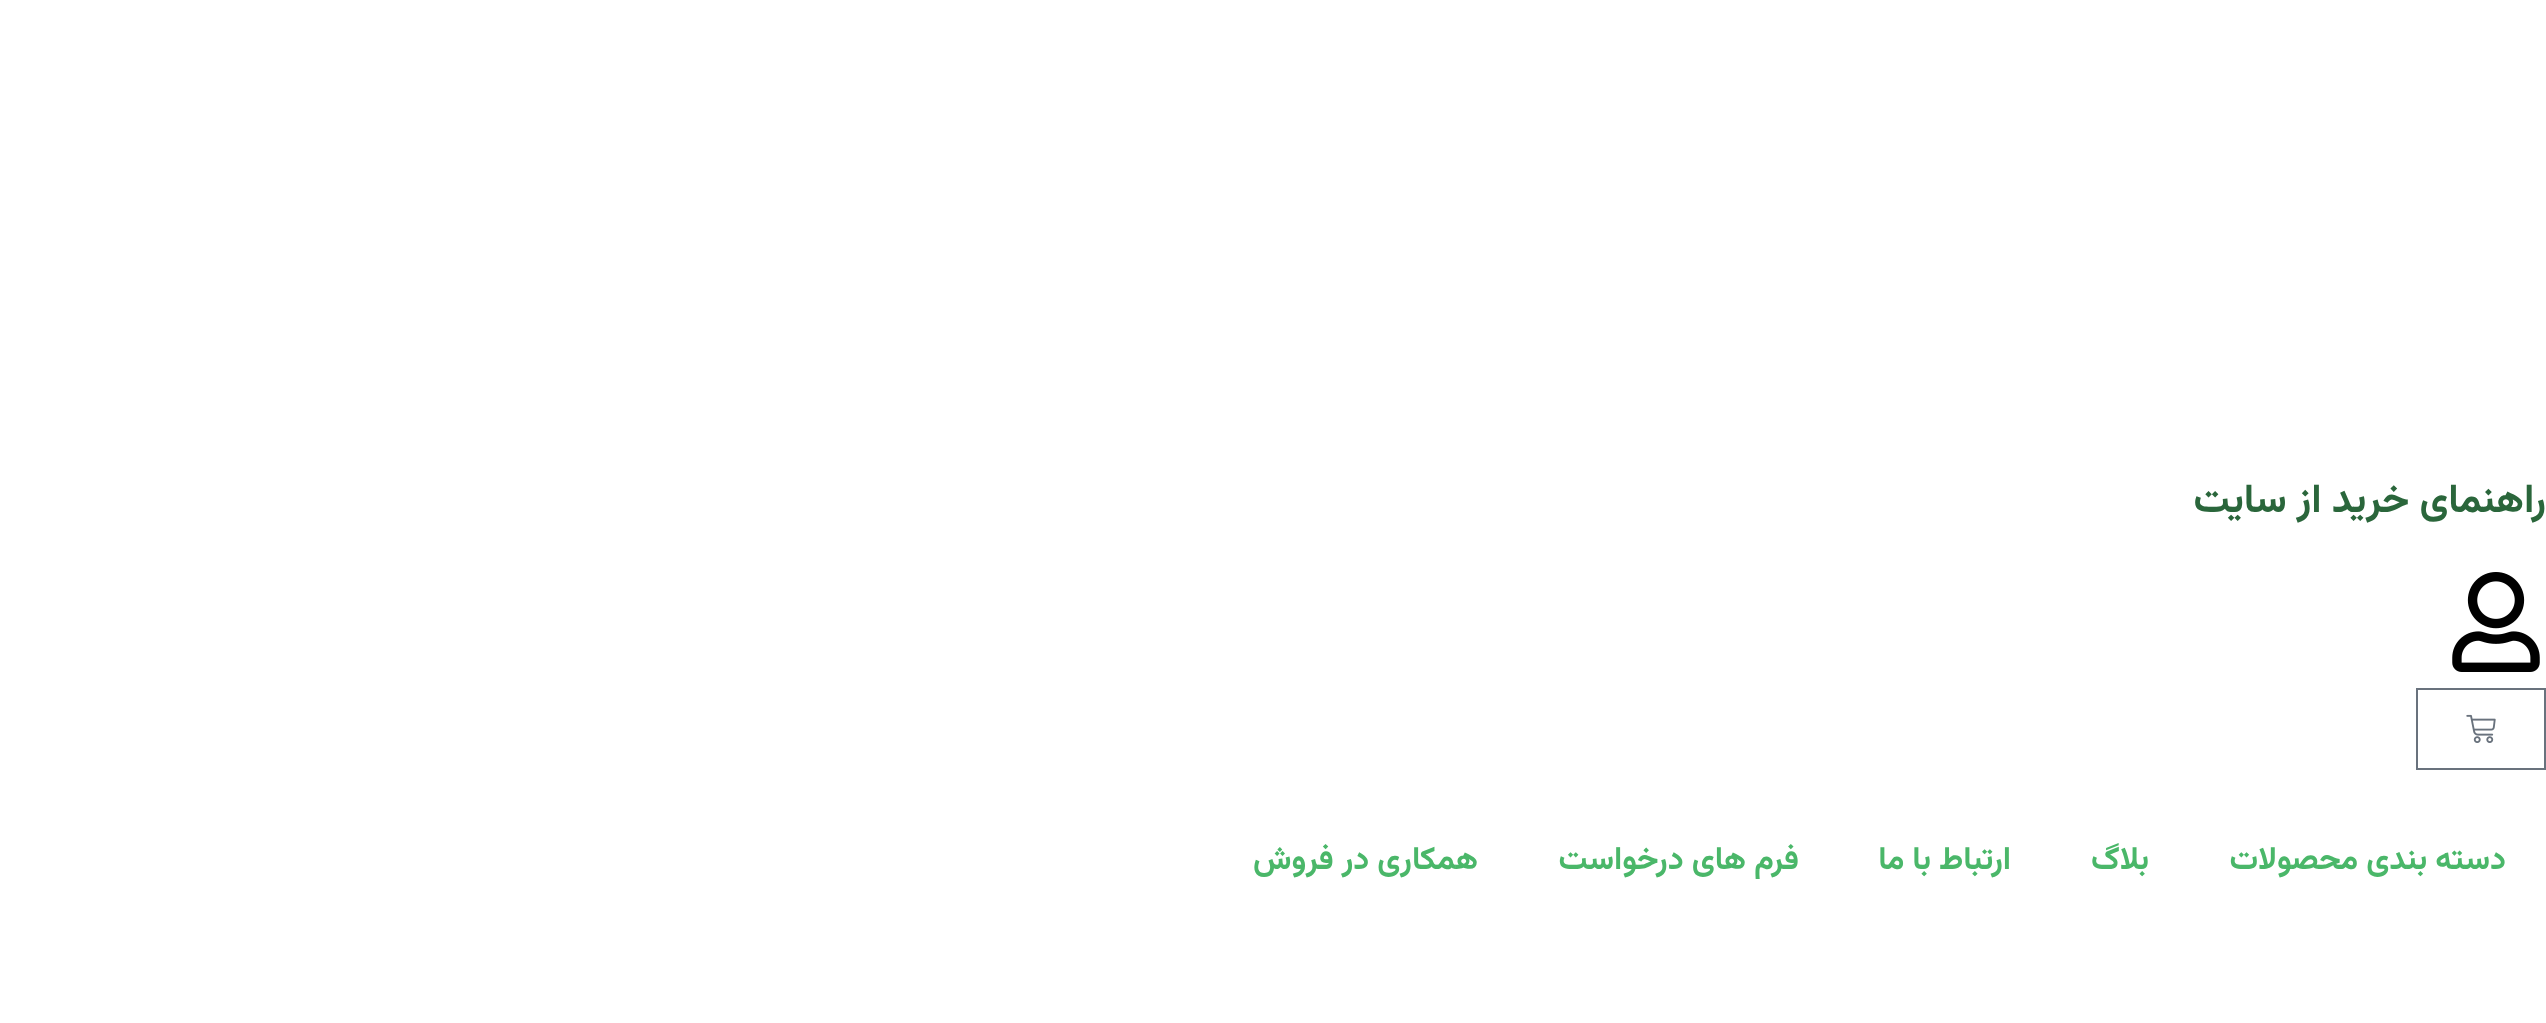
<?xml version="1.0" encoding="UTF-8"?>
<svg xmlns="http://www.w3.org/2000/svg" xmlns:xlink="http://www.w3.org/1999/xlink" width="2546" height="1023">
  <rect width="100%" height="100%" fill="#ffffff" />
  <image x="2452" y="572" width="88" height="100" xlink:href="image1.png" />
  <rect x="2417" y="689" width="128" height="80" fill="none" stroke="#69727d" stroke-width="2" />
  <image x="2466" y="714" width="30" height="29" xlink:href="image2.png" />
  <text x="2546" y="512" style="font-family: Vazirmatn; font-size: 40px; font-weight: bold; direction: rtl; fill: #2a663b">راهنمای خرید از سایت</text>
  <text x="2506" y="869" style="font-family: Vazirmatn; font-size: 32px; font-weight: bold; direction: rtl; fill: #4ab769">دسته بندی محصولات</text>
  <text x="2149" y="869" style="font-family: Vazirmatn; font-size: 32px; font-weight: bold; direction: rtl; fill: #4ab769">بلاگ</text>
  <text x="2011" y="869" style="font-family: Vazirmatn; font-size: 32px; font-weight: bold; direction: rtl; fill: #4ab769">ارتباط با ما</text>
  <text x="1799" y="869" style="font-family: Vazirmatn; font-size: 32px; font-weight: bold; direction: rtl; fill: #4ab769">فرم های درخواست</text>
  <text x="1478" y="869" style="font-family: Vazirmatn; font-size: 32px; font-weight: bold; direction: rtl; fill: #4ab769">همکاری در فروش</text>
</svg>
